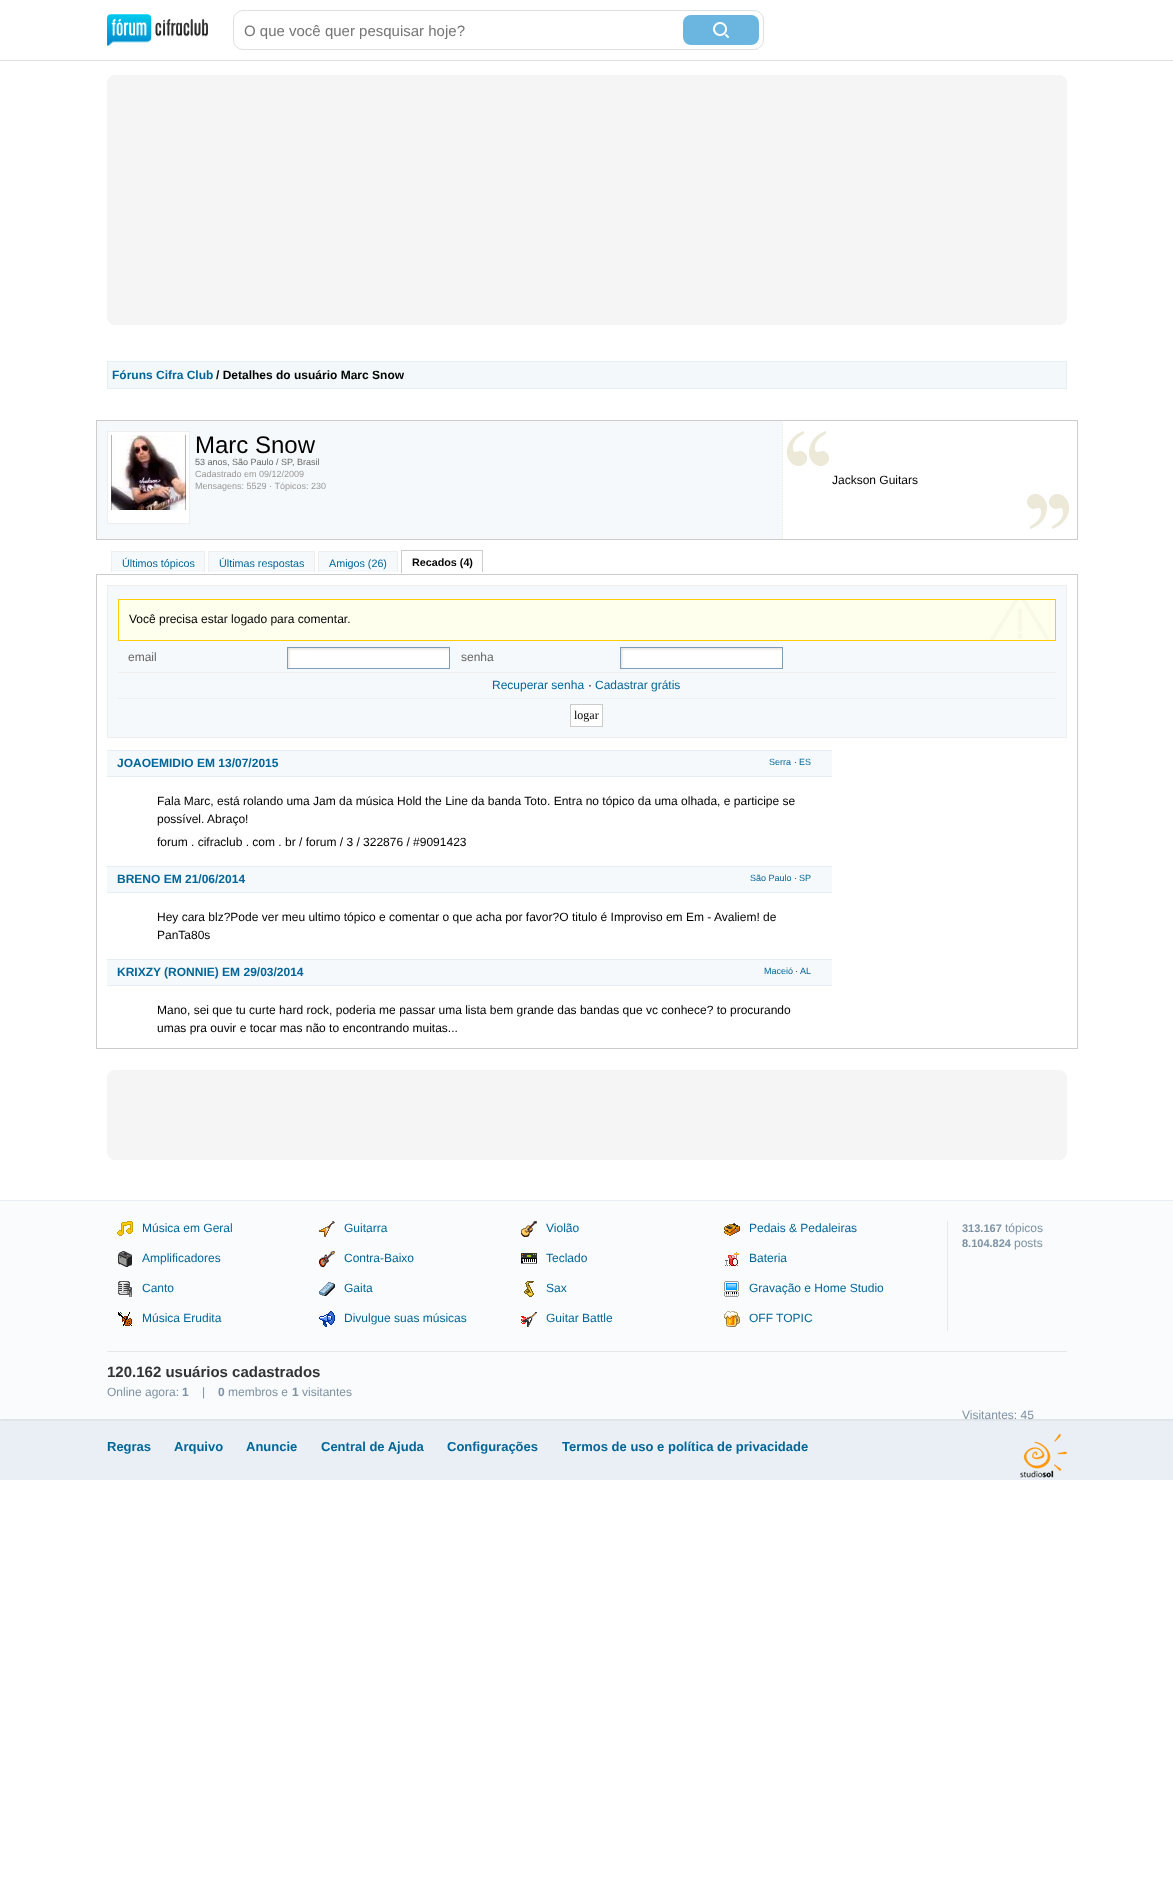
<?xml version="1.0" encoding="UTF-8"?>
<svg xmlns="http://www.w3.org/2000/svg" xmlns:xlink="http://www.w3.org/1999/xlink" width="1173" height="1895">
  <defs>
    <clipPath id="clip1"><rect x="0" y="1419" width="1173" height="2" /></clipPath>
    <clipPath id="clip2"><rect x="244" y="22" width="429" height="17" /></clipPath>
  </defs>
  <rect width="100%" height="100%" fill="#ffffff" />
  <rect y="60" width="1173" height="1" fill="#e0e0e0" />
  <image x="107" y="14" width="101" height="32" xlink:href="image1.png" />
  <rect x="233.5" y="10.5" width="530" height="39" rx="9.5" fill="none" stroke="#e0e0e0" />
  <rect x="683" y="15" width="76" height="30" rx="8" fill="#6bb5e1" />
  <image x="713" y="22" width="16" height="16" xlink:href="image2.png" />
  <rect x="107" y="75" width="960" height="250" rx="8" fill="#f5f5f5" />
  <rect x="108" y="362" width="958" height="26" fill="#f3f9fb" />
  <rect x="107" y="361" width="960" height="1" fill="#e4eef3" />
  <rect x="1066" y="361" width="1" height="28" fill="#e4eef3" />
  <rect x="107" y="388" width="960" height="1" fill="#e4eef3" />
  <rect x="107" y="361" width="1" height="28" fill="#e4eef3" />
  <rect x="97" y="421" width="685" height="118" fill="#f6f9fb" />
  <image x="782" y="421" width="295" height="118" xlink:href="image3.png" />
  <rect x="96.5" y="420.5" width="981" height="119" fill="none" stroke="#cccccc" />
  <rect x="107.5" y="431.5" width="82" height="92" fill="#ffffff" stroke="#eeeeee" />
  <image x="111" y="435" width="75" height="75" xlink:href="image4.png" />
  <image x="787" y="431" width="42" height="35" xlink:href="image5.png" />
  <rect x="112" y="552" width="92" height="20" fill="#f6f9fb" />
  <rect x="111" y="551" width="94" height="1" fill="#eeeeee" />
  <rect x="204" y="551" width="1" height="21" fill="#eeeeee" />
  <rect x="111" y="551" width="1" height="21" fill="#eeeeee" />
  <rect x="209" y="552" width="105" height="20" fill="#f6f9fb" />
  <rect x="208" y="551" width="107" height="1" fill="#eeeeee" />
  <rect x="314" y="551" width="1" height="21" fill="#eeeeee" />
  <rect x="208" y="551" width="1" height="21" fill="#eeeeee" />
  <rect x="319" y="552" width="78" height="20" fill="#f6f9fb" />
  <rect x="318" y="551" width="80" height="1" fill="#eeeeee" />
  <rect x="397" y="551" width="1" height="21" fill="#eeeeee" />
  <rect x="318" y="551" width="1" height="21" fill="#eeeeee" />
  <rect x="401" y="550" width="82" height="1" fill="#cccccc" />
  <rect x="482" y="550" width="1" height="23" fill="#cccccc" />
  <rect x="482" y="572" width="1" height="1" fill="#ffffff" />
  <rect x="401" y="550" width="1" height="23" fill="#cccccc" />
  <rect x="96.5" y="574.5" width="981" height="474" fill="none" stroke="#cccccc" />
  <rect x="107.5" y="585.5" width="959" height="152" fill="#f6f9fb" stroke="#eeeeee" />
  <rect x="119" y="600" width="936" height="40" fill="#ffffee" />
  <image x="990" y="600" width="60" height="40" xlink:href="image6.png" />
  <rect x="118.5" y="599.5" width="937" height="41" fill="none" stroke="#ffcc00" />
  <image x="288" y="648" width="161" height="20" xlink:href="image7.png" />
  <rect x="287.5" y="647.5" width="162" height="21" fill="none" stroke="#7f9db9" />
  <image x="621" y="648" width="161" height="20" xlink:href="image7.png" />
  <rect x="620.5" y="647.5" width="162" height="21" fill="none" stroke="#7f9db9" />
  <rect x="118" y="672" width="938" height="1" fill="#eeeeee" />
  <rect x="118" y="698" width="938" height="1" fill="#eeeeee" />
  <rect x="570.5" y="704.5" width="32" height="22" fill="#ffffff" stroke="#cccccc" />
  <rect x="107" y="751" width="725" height="25" fill="#f6f9fb" />
  <rect x="107" y="750" width="725" height="1" fill="#e4eef3" />
  <rect x="107" y="776" width="725" height="1" fill="#e4eef3" />
  <rect x="107" y="867" width="725" height="25" fill="#f6f9fb" />
  <rect x="107" y="866" width="725" height="1" fill="#e4eef3" />
  <rect x="107" y="892" width="725" height="1" fill="#e4eef3" />
  <rect x="107" y="960" width="725" height="25" fill="#f6f9fb" />
  <rect x="107" y="959" width="725" height="1" fill="#e4eef3" />
  <rect x="107" y="985" width="725" height="1" fill="#e4eef3" />
  <rect x="107" y="1070" width="960" height="90" rx="8" fill="#f5f5f5" />
  <rect y="1200" width="1173" height="1" fill="#e9eff4" />
  <rect y="1201" width="1173" height="218" fill="#f9fbfc" />
  <rect x="107" y="1351" width="960" height="1" fill="#e8e8e8" />
  <rect x="947" y="1221" width="1" height="110" fill="#e8e8e8" />
  <image x="117" y="1221" width="16" height="15" xlink:href="image8.png" />
  <image x="319" y="1221" width="16" height="16" xlink:href="image9.png" />
  <image x="521" y="1221" width="16" height="16" xlink:href="image10.png" />
  <image x="724" y="1223" width="16" height="13" xlink:href="image11.png" />
  <image x="118" y="1251" width="14" height="16" xlink:href="image12.png" />
  <image x="319" y="1251" width="16" height="16" xlink:href="image13.png" />
  <image x="521" y="1253" width="16" height="11" xlink:href="image14.png" />
  <image x="725" y="1252" width="14" height="14" xlink:href="image15.png" />
  <image x="118" y="1281" width="14" height="16" xlink:href="image16.png" />
  <image x="319" y="1282" width="16" height="14" xlink:href="image17.png" />
  <image x="524" y="1281" width="10" height="16" xlink:href="image18.png" />
  <image x="724" y="1281" width="15" height="16" xlink:href="image19.png" />
  <image x="118" y="1312" width="14" height="14" xlink:href="image20.png" />
  <image x="319" y="1311" width="16" height="16" xlink:href="image21.png" />
  <image x="521" y="1312" width="16" height="15" xlink:href="image22.png" />
  <image x="724" y="1311" width="16" height="16" xlink:href="image23.png" />
  <rect y="1419" width="1173" height="61" fill="#e9eff4" />
  <g clip-path="url(#clip1)">
    <rect y="1411" width="1173" height="10" fill="#000000" fill-opacity="0.05" filter="blur(1px)" />
  </g>
  <image x="1020" y="1434" width="47" height="44" xlink:href="image24.png" />
  <g clip-path="url(#clip2)">
    <text x="244" y="36" style="font-family: Liberation Sans; font-size: 15px; fill: #757575">O que você quer pesquisar hoje?</text>
  </g>
  <text x="112" y="379" style="font-family: Liberation Sans; font-size: 12px; font-weight: bold; fill: #006699">Fóruns Cifra Club</text>
  <text x="216" y="379" style="font-family: Liberation Sans; font-size: 12px; font-weight: bold; fill: #000000">/ Detalhes do usuário Marc Snow</text>
  <text x="195" y="453" style="font-family: Liberation Sans; font-size: 24px; fill: #000000">Marc Snow</text>
  <text x="195" y="465" style="font-family: Liberation Sans; font-size: 9px; fill: #666666">53 anos, São Paulo / SP, Brasil</text>
  <text x="195" y="477" style="font-family: Liberation Sans; font-size: 9px; fill: #999999">Cadastrado em 09/12/2009</text>
  <text x="832" y="484" style="font-family: Liberation Sans; font-size: 12px; fill: #000000">Jackson Guitars</text>
  <text x="195" y="489" style="font-family: Liberation Sans; font-size: 9px; fill: #999999">Mensagens: 5529 · Tópicos: 230</text>
  <text x="122" y="567" style="font-family: Liberation Sans; font-size: 10.75px; fill: #006699">Últimos tópicos</text>
  <text x="219" y="567" style="font-family: Liberation Sans; font-size: 10.75px; fill: #006699">Últimas respostas</text>
  <text x="329" y="567" style="font-family: Liberation Sans; font-size: 10.75px; fill: #006699">Amigos (26)</text>
  <text x="412" y="566" style="font-family: Liberation Sans; font-size: 10.75px; font-weight: bold; fill: #000000">Recados (4)</text>
  <text x="129" y="623" style="font-family: Liberation Sans; font-size: 12px; fill: #000000">Você precisa estar logado para comentar.</text>
  <text x="128" y="661" style="font-family: Liberation Sans; font-size: 12px; fill: #666666">email</text>
  <text x="461" y="661" style="font-family: Liberation Sans; font-size: 12px; fill: #666666">senha</text>
  <text x="492" y="689" style="font-family: Liberation Sans; font-size: 12px; fill: #006699">Recuperar senha</text>
  <text x="588" y="689" style="font-family: Liberation Sans; font-size: 12px; fill: #000000">·</text>
  <text x="595" y="689" style="font-family: Liberation Sans; font-size: 12px; fill: #006699">Cadastrar grátis</text>
  <text x="574" y="719" style="font-family: Liberation Serif; font-size: 12px; fill: #000000">logar</text>
  <text x="117" y="767" style="font-family: Liberation Sans; font-size: 12px; font-weight: bold; fill: #006699">JOAOEMIDIO EM 13/07/2015</text>
  <text x="769" y="765" style="font-family: Liberation Sans; font-size: 9px; fill: #006699">Serra</text>
  <text x="794" y="765" style="font-family: Liberation Sans; font-size: 9px; fill: #333333">·</text>
  <text x="799" y="765" style="font-family: Liberation Sans; font-size: 9px; fill: #006699">ES</text>
  <text x="157" y="805" style="font-family: Liberation Sans; font-size: 12px; fill: #000000">Fala Marc, está rolando uma Jam da música Hold the Line da banda Toto. Entra no tópico da uma olhada, e participe se</text>
  <text x="157" y="823" style="font-family: Liberation Sans; font-size: 12px; fill: #000000">possível. Abraço!</text>
  <text x="157" y="846" style="font-family: Liberation Sans; font-size: 12px; fill: #000000">forum . cifraclub . com . br / forum / 3 / 322876 / #9091423</text>
  <text x="117" y="883" style="font-family: Liberation Sans; font-size: 12px; font-weight: bold; fill: #006699">BRENO EM 21/06/2014</text>
  <text x="750" y="881" style="font-family: Liberation Sans; font-size: 9px; fill: #006699">São Paulo</text>
  <text x="794" y="881" style="font-family: Liberation Sans; font-size: 9px; fill: #333333">·</text>
  <text x="799" y="881" style="font-family: Liberation Sans; font-size: 9px; fill: #006699">SP</text>
  <text x="157" y="921" style="font-family: Liberation Sans; font-size: 12px; fill: #000000">Hey cara blz?Pode ver meu ultimo tópico e comentar o que acha por favor?O titulo é Improviso em Em - Avaliem! de</text>
  <text x="157" y="939" style="font-family: Liberation Sans; font-size: 12px; fill: #000000">PanTa80s</text>
  <text x="117" y="976" style="font-family: Liberation Sans; font-size: 12px; font-weight: bold; fill: #006699">KRIXZY (RONNIE) EM 29/03/2014</text>
  <text x="764" y="974" style="font-family: Liberation Sans; font-size: 9px; fill: #006699">Maceió</text>
  <text x="795" y="974" style="font-family: Liberation Sans; font-size: 9px; fill: #333333">·</text>
  <text x="800" y="974" style="font-family: Liberation Sans; font-size: 9px; fill: #006699">AL</text>
  <text x="157" y="1014" style="font-family: Liberation Sans; font-size: 12px; fill: #000000">Mano, sei que tu curte hard rock, poderia me passar uma lista bem grande das bandas que vc conhece? to procurando</text>
  <text x="157" y="1032" style="font-family: Liberation Sans; font-size: 12px; fill: #000000">umas pra ouvir e tocar mas não to encontrando muitas...</text>
  <text x="142" y="1232" style="font-family: Liberation Sans; font-size: 12px; fill: #006699">Música em Geral</text>
  <text x="344" y="1232" style="font-family: Liberation Sans; font-size: 12px; fill: #006699">Guitarra</text>
  <text x="546" y="1232" style="font-family: Liberation Sans; font-size: 12px; fill: #006699">Violão</text>
  <text x="749" y="1232" style="font-family: Liberation Sans; font-size: 12px; fill: #006699">Pedais &amp; Pedaleiras</text>
  <text x="142" y="1262" style="font-family: Liberation Sans; font-size: 12px; fill: #006699">Amplificadores</text>
  <text x="344" y="1262" style="font-family: Liberation Sans; font-size: 12px; fill: #006699">Contra-Baixo</text>
  <text x="546" y="1262" style="font-family: Liberation Sans; font-size: 12px; fill: #006699">Teclado</text>
  <text x="749" y="1262" style="font-family: Liberation Sans; font-size: 12px; fill: #006699">Bateria</text>
  <text x="142" y="1292" style="font-family: Liberation Sans; font-size: 12px; fill: #006699">Canto</text>
  <text x="344" y="1292" style="font-family: Liberation Sans; font-size: 12px; fill: #006699">Gaita</text>
  <text x="546" y="1292" style="font-family: Liberation Sans; font-size: 12px; fill: #006699">Sax</text>
  <text x="749" y="1292" style="font-family: Liberation Sans; font-size: 12px; fill: #006699">Gravação e Home Studio</text>
  <text x="142" y="1322" style="font-family: Liberation Sans; font-size: 12px; fill: #006699">Música Erudita</text>
  <text x="344" y="1322" style="font-family: Liberation Sans; font-size: 12px; fill: #006699">Divulgue suas músicas</text>
  <text x="546" y="1322" style="font-family: Liberation Sans; font-size: 12px; fill: #006699">Guitar Battle</text>
  <text x="749" y="1322" style="font-family: Liberation Sans; font-size: 12px; fill: #006699">OFF TOPIC</text>
  <text x="962" y="1232" style="font-family: Liberation Sans; font-size: 11px; font-weight: bold; fill: #7e92a5">313.167</text>
  <text x="1005" y="1232" style="font-family: Liberation Sans; font-size: 12px; fill: #7e92a5">tópicos</text>
  <text x="962" y="1247" style="font-family: Liberation Sans; font-size: 11px; font-weight: bold; fill: #7e92a5">8.104.824</text>
  <text x="1014" y="1247" style="font-family: Liberation Sans; font-size: 12px; fill: #7e92a5">posts</text>
  <text x="107" y="1377" style="font-family: Liberation Sans; font-size: 15px; font-weight: bold; fill: #333333">120.162 usuários cadastrados</text>
  <text x="107" y="1396" style="font-family: Liberation Sans; font-size: 12px; fill: #7e92a5">Online agora:</text>
  <text x="182" y="1396" style="font-family: Liberation Sans; font-size: 12px; font-weight: bold; fill: #7e92a5">1</text>
  <text x="202" y="1396" style="font-family: Liberation Sans; font-size: 12px; fill: #7e92a5">|</text>
  <text x="218" y="1396" style="font-family: Liberation Sans; font-size: 12px; font-weight: bold; fill: #7e92a5">0</text>
  <text x="228" y="1396" style="font-family: Liberation Sans; font-size: 12px; fill: #7e92a5">membros e</text>
  <text x="292" y="1396" style="font-family: Liberation Sans; font-size: 12px; font-weight: bold; fill: #7e92a5">1</text>
  <text x="302" y="1396" style="font-family: Liberation Sans; font-size: 12px; fill: #7e92a5">visitantes</text>
  <text x="962" y="1419" style="font-family: Liberation Sans; font-size: 12px; fill: #7e92a5">Visitantes: 45</text>
  <text x="107" y="1451" style="font-family: Liberation Sans; font-size: 13px; font-weight: bold; fill: #006699">Regras</text>
  <text x="174" y="1451" style="font-family: Liberation Sans; font-size: 13px; font-weight: bold; fill: #006699">Arquivo</text>
  <text x="246" y="1451" style="font-family: Liberation Sans; font-size: 13px; font-weight: bold; fill: #006699">Anuncie</text>
  <text x="321" y="1451" style="font-family: Liberation Sans; font-size: 13px; font-weight: bold; fill: #006699">Central de Ajuda</text>
  <text x="447" y="1451" style="font-family: Liberation Sans; font-size: 13px; font-weight: bold; fill: #006699">Configurações</text>
  <text x="562" y="1451" style="font-family: Liberation Sans; font-size: 13px; font-weight: bold; fill: #006699">Termos de uso e política de privacidade</text>
</svg>
